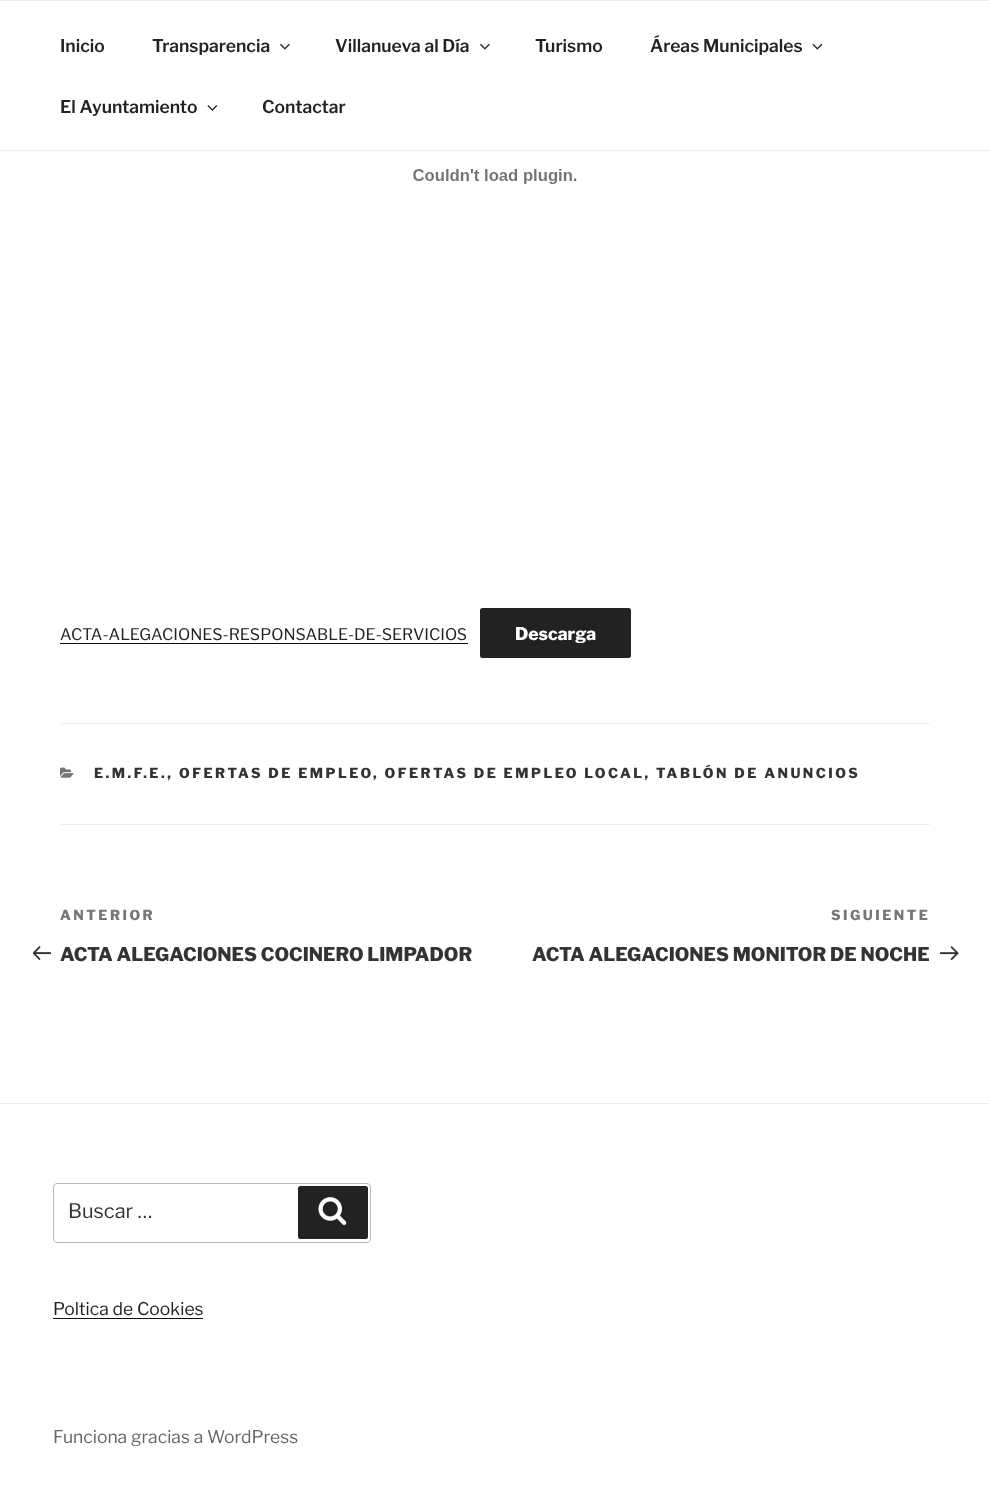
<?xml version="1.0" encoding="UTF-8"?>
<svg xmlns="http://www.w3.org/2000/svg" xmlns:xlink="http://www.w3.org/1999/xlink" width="989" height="1494">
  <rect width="100%" height="100%" fill="#ffffff" />
  <rect width="989" height="1" fill="#eeeeee" />
  <rect y="150" width="989" height="1" fill="#eeeeee" />
  <image x="280" y="43" width="10" height="7" xlink:href="image1.png" />
  <image x="480" y="43" width="10" height="7" xlink:href="image1.png" />
  <image x="812" y="43" width="11" height="7" xlink:href="image2.png" />
  <image x="207" y="105" width="11" height="6" xlink:href="image3.png" />
  <image x="413" y="169" width="164" height="15" xlink:href="image4.png" />
  <rect x="60" y="643" width="408" height="1" fill="#0f0f0f" />
  <rect x="480" y="608" width="151" height="50" rx="2.5" fill="#222222" />
  <rect x="60" y="723" width="870" height="1" fill="#eeeeee" />
  <rect x="60" y="824" width="870" height="1" fill="#eeeeee" />
  <image x="60" y="767" width="14" height="11" xlink:href="image5.png" />
  <image x="33" y="946" width="18" height="14" xlink:href="image6.png" />
  <image x="940" y="946" width="19" height="15" xlink:href="image7.png" />
  <rect y="1103" width="989" height="1" fill="#eeeeee" />
  <rect x="53.5" y="1183.5" width="317" height="59" rx="3.5" fill="none" stroke="#bbbbbb" />
  <rect x="298" y="1186" width="70" height="53" rx="2.5" fill="#222222" />
  <image x="318" y="1197" width="29" height="28" xlink:href="image8.png" />
  <rect x="53" y="1318" width="150" height="1" fill="#0f0f0f" />
  <text x="60" y="52" style="font-family: 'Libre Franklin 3'; font-size: 17.5px; font-weight: 100; fill: #222222">Inicio</text>
  <text x="152" y="52" style="font-family: 'Libre Franklin 3'; font-size: 17.5px; font-weight: 100; fill: #222222">Transparencia</text>
  <text x="335" y="52" style="font-family: 'Libre Franklin 3'; font-size: 17.5px; font-weight: 100; fill: #222222">Villanueva al Día</text>
  <text x="535" y="52" style="font-family: 'Libre Franklin 3'; font-size: 17.5px; font-weight: 100; fill: #222222">Turismo</text>
  <text x="650" y="52" style="font-family: 'Libre Franklin 3'; font-size: 17.5px; font-weight: 100; fill: #222222">Áreas Municipales</text>
  <text x="60" y="113" style="font-family: 'Libre Franklin 3'; font-size: 17.5px; font-weight: 100; fill: #222222">El Ayuntamiento</text>
  <text x="262" y="113" style="font-family: 'Libre Franklin 3'; font-size: 17.5px; font-weight: 100; fill: #222222">Contactar</text>
  <text x="60" y="640" style="font-family: 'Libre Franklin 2'; font-size: 16px; font-weight: 100; fill: #222222">ACTA-ALEGACIONES-RESPONSABLE-DE-SERVICIOS</text>
  <text x="515" y="640" style="font-family: Libre Franklin; font-size: 17.5px; font-weight: 100; fill: #ffffff">Descarga</text>
  <text x="94" y="778" style="font-family: Libre Franklin; font-size: 13.75px; font-weight: 100; letter-spacing: 2.5px; fill: #333333">E.M.F.E.,</text>
  <text x="179" y="778" style="font-family: Libre Franklin; font-size: 13.75px; font-weight: 100; letter-spacing: 2.5px; fill: #333333">OFERTAS DE EMPLEO</text>
  <text x="373" y="778" style="font-family: Libre Franklin; font-size: 13.75px; font-weight: 100; letter-spacing: 2.5px; fill: #333333">, OFERTAS DE EMPLEO LOCAL, TABLÓN DE ANUNCIOS</text>
  <text x="60" y="920" style="font-family: Libre Franklin; font-size: 13.75px; font-weight: 100; letter-spacing: 2.5px; fill: #767676">ANTERIOR</text>
  <text x="60" y="961" style="font-family: Libre Franklin; font-size: 18.75px; font-weight: 100; fill: #333333">ACTA ALEGACIONES COCINERO LIMPADOR</text>
  <text x="831" y="920" style="font-family: Libre Franklin; font-size: 13.75px; font-weight: 100; letter-spacing: 2.5px; fill: #767676">SIGUIENTE</text>
  <text x="532" y="961" style="font-family: Libre Franklin; font-size: 18.75px; font-weight: 100; fill: #333333">ACTA ALEGACIONES MONITOR DE NOCHE</text>
  <text x="68" y="1218" style="font-family: 'Libre Franklin 2'; font-size: 20px; font-weight: 100; fill: #333333">Buscar …</text>
  <text x="53" y="1315" style="font-family: 'Libre Franklin 2'; font-size: 17.5px; font-weight: 100; fill: #222222">Poltica de Cookies</text>
  <text x="53" y="1443" style="font-family: 'Libre Franklin 2'; font-size: 17.5px; font-weight: 100; fill: #666666">Funciona gracias a WordPress</text>
</svg>
